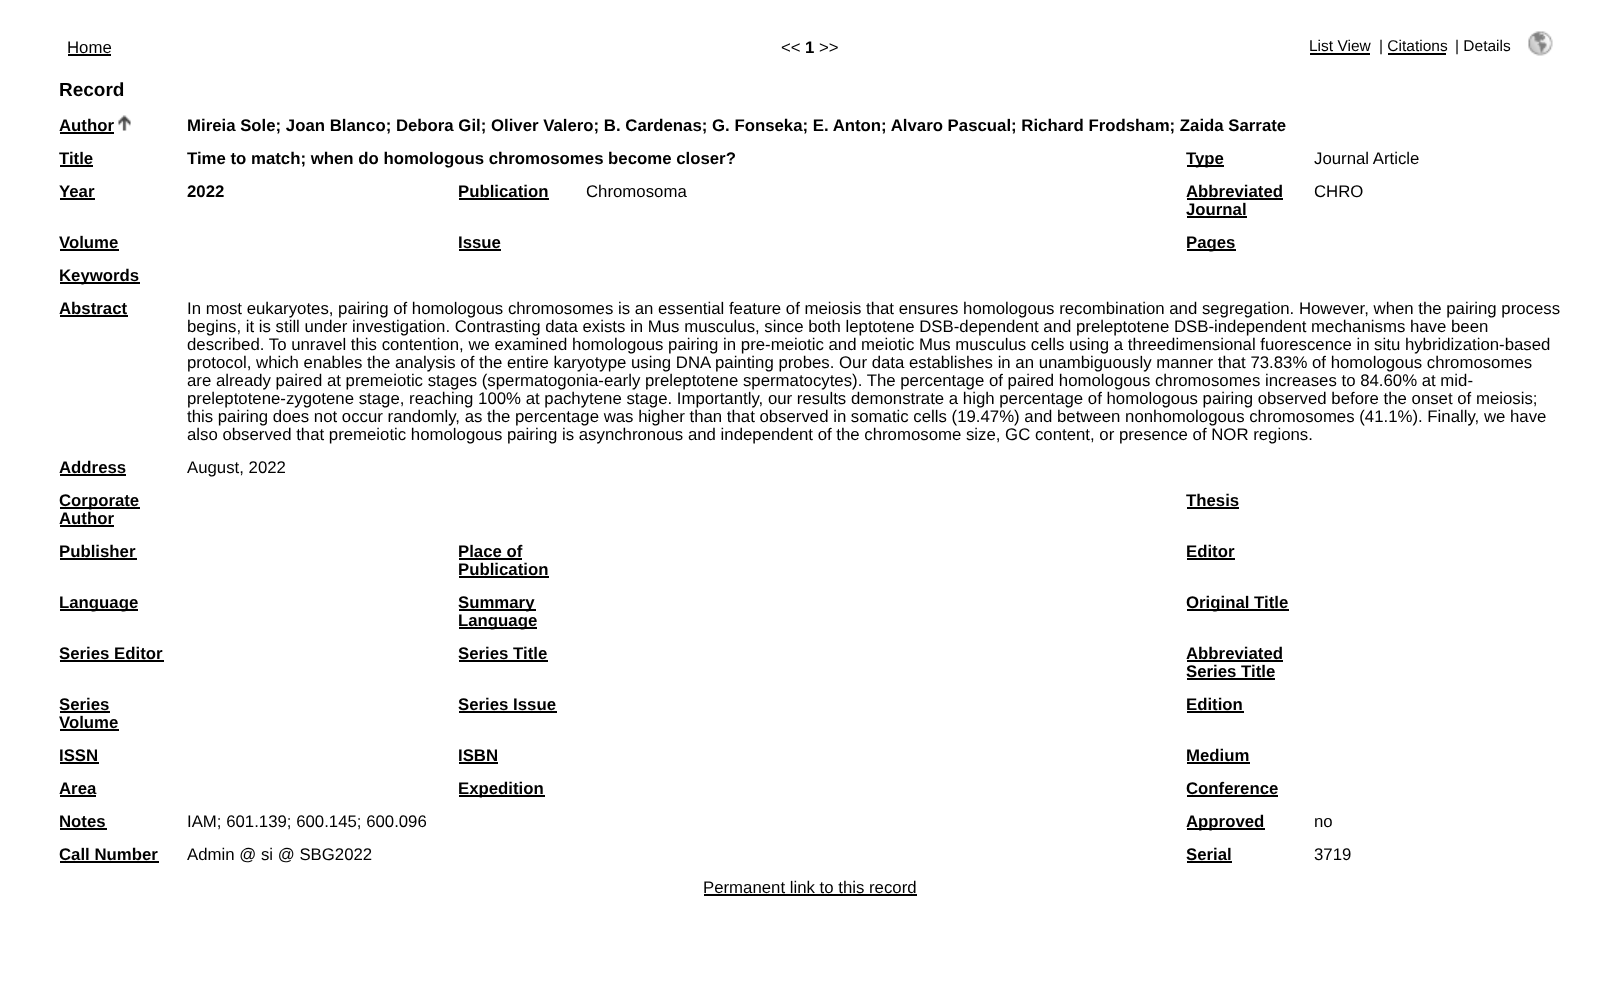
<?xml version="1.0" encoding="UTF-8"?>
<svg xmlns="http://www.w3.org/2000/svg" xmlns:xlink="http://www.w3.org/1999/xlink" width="1620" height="986">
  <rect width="100%" height="100%" fill="#ffffff" />
  <rect x="68" y="54" width="43" height="2" fill="#000000" />
  <rect x="1310" y="53" width="60" height="2" fill="#000000" />
  <rect x="1388" y="53" width="58" height="2" fill="#000000" />
  <image x="1528" y="31" width="25" height="25" xlink:href="image1.png" />
  <rect x="60" y="132" width="54" height="2" fill="#000000" />
  <image x="118" y="115" width="13" height="16" xlink:href="image2.png" />
  <rect x="60" y="165" width="33" height="2" fill="#000000" />
  <rect x="1187" y="165" width="37" height="2" fill="#000000" />
  <rect x="60" y="198" width="35" height="2" fill="#000000" />
  <rect x="459" y="198" width="90" height="2" fill="#000000" />
  <rect x="1187" y="198" width="96" height="2" fill="#000000" />
  <rect x="1187" y="216" width="60" height="2" fill="#000000" />
  <rect x="60" y="249" width="59" height="2" fill="#000000" />
  <rect x="459" y="249" width="42" height="2" fill="#000000" />
  <rect x="1187" y="249" width="49" height="2" fill="#000000" />
  <rect x="60" y="282" width="80" height="2" fill="#000000" />
  <rect x="60" y="315" width="68" height="2" fill="#000000" />
  <rect x="60" y="474" width="66" height="2" fill="#000000" />
  <rect x="60" y="507" width="80" height="2" fill="#000000" />
  <rect x="60" y="525" width="54" height="2" fill="#000000" />
  <rect x="1187" y="507" width="52" height="2" fill="#000000" />
  <rect x="60" y="558" width="77" height="2" fill="#000000" />
  <rect x="459" y="558" width="63" height="2" fill="#000000" />
  <rect x="459" y="576" width="90" height="2" fill="#000000" />
  <rect x="1187" y="558" width="48" height="2" fill="#000000" />
  <rect x="60" y="609" width="78" height="2" fill="#000000" />
  <rect x="459" y="609" width="77" height="2" fill="#000000" />
  <rect x="459" y="627" width="78" height="2" fill="#000000" />
  <rect x="1187" y="609" width="102" height="2" fill="#000000" />
  <rect x="60" y="660" width="104" height="2" fill="#000000" />
  <rect x="459" y="660" width="89" height="2" fill="#000000" />
  <rect x="1187" y="660" width="96" height="2" fill="#000000" />
  <rect x="1187" y="678" width="88" height="2" fill="#000000" />
  <rect x="60" y="711" width="50" height="2" fill="#000000" />
  <rect x="60" y="729" width="59" height="2" fill="#000000" />
  <rect x="459" y="711" width="98" height="2" fill="#000000" />
  <rect x="1187" y="711" width="57" height="2" fill="#000000" />
  <rect x="60" y="762" width="39" height="2" fill="#000000" />
  <rect x="459" y="762" width="39" height="2" fill="#000000" />
  <rect x="1187" y="762" width="63" height="2" fill="#000000" />
  <rect x="60" y="795" width="36" height="2" fill="#000000" />
  <rect x="459" y="795" width="86" height="2" fill="#000000" />
  <rect x="1187" y="795" width="91" height="2" fill="#000000" />
  <rect x="60" y="828" width="47" height="2" fill="#000000" />
  <rect x="1187" y="828" width="78" height="2" fill="#000000" />
  <rect x="60" y="861" width="99" height="2" fill="#000000" />
  <rect x="1187" y="861" width="45" height="2" fill="#000000" />
  <rect x="704" y="894" width="213" height="2" fill="#000000" />
  <text x="67" y="53" style="font-family: Liberation Sans; font-size: 16.8px; fill: #000000">Home</text>
  <text x="781" y="53" style="font-family: Liberation Sans; font-size: 16.8px; fill: #000000">&lt;&lt;</text>
  <text x="805" y="53" style="font-family: Liberation Sans; font-size: 16.8px; font-weight: bold; fill: #000000">1</text>
  <text x="819" y="53" style="font-family: Liberation Sans; font-size: 16.8px; fill: #000000">&gt;&gt;</text>
  <text x="1309" y="51" style="font-family: Liberation Sans; font-size: 15.5px; fill: #000000">List View</text>
  <text x="1379" y="51" style="font-family: Liberation Sans; font-size: 15.5px; fill: #000000">| Citations</text>
  <text x="1455" y="51" style="font-family: Liberation Sans; font-size: 15.5px; fill: #000000">| Details</text>
  <text x="59" y="96" style="font-family: Liberation Sans; font-size: 19px; font-weight: bold; fill: #000000">Record</text>
  <text x="59" y="131" style="font-family: Liberation Sans; font-size: 16.8px; font-weight: bold; fill: #000000">Author</text>
  <text x="187" y="131" style="font-family: Liberation Sans; font-size: 16.8px; font-weight: bold; fill: #000000">Mireia Sole; Joan Blanco; Debora Gil; Oliver Valero; B. Cardenas; G. Fonseka; E. Anton; Alvaro Pascual; Richard Frodsham; Zaida Sarrate</text>
  <text x="59" y="164" style="font-family: Liberation Sans; font-size: 16.8px; font-weight: bold; fill: #000000">Title</text>
  <text x="187" y="164" style="font-family: Liberation Sans; font-size: 16.8px; font-weight: bold; fill: #000000">Time to match; when do homologous chromosomes become closer?</text>
  <text x="1186" y="164" style="font-family: Liberation Sans; font-size: 16.8px; font-weight: bold; fill: #000000">Type</text>
  <text x="1314" y="164" style="font-family: Liberation Sans; font-size: 16.8px; fill: #000000">Journal Article</text>
  <text x="59" y="197" style="font-family: Liberation Sans; font-size: 16.8px; font-weight: bold; fill: #000000">Year</text>
  <text x="187" y="197" style="font-family: Liberation Sans; font-size: 16.8px; font-weight: bold; fill: #000000">2022</text>
  <text x="458" y="197" style="font-family: Liberation Sans; font-size: 16.8px; font-weight: bold; fill: #000000">Publication</text>
  <text x="586" y="197" style="font-family: Liberation Sans; font-size: 16.8px; fill: #000000">Chromosoma</text>
  <text x="1186" y="197" style="font-family: Liberation Sans; font-size: 16.8px; font-weight: bold; fill: #000000">Abbreviated</text>
  <text x="1186" y="215" style="font-family: Liberation Sans; font-size: 16.8px; font-weight: bold; fill: #000000">Journal</text>
  <text x="1314" y="197" style="font-family: Liberation Sans; font-size: 16.8px; fill: #000000">CHRO</text>
  <text x="59" y="248" style="font-family: Liberation Sans; font-size: 16.8px; font-weight: bold; fill: #000000">Volume</text>
  <text x="458" y="248" style="font-family: Liberation Sans; font-size: 16.8px; font-weight: bold; fill: #000000">Issue</text>
  <text x="1186" y="248" style="font-family: Liberation Sans; font-size: 16.8px; font-weight: bold; fill: #000000">Pages</text>
  <text x="59" y="281" style="font-family: Liberation Sans; font-size: 16.8px; font-weight: bold; fill: #000000">Keywords</text>
  <text x="59" y="314" style="font-family: Liberation Sans; font-size: 16.8px; font-weight: bold; fill: #000000">Abstract</text>
  <text x="187" y="314" style="font-family: Liberation Sans; font-size: 16.8px; fill: #000000">In most eukaryotes, pairing of homologous chromosomes is an essential feature of meiosis that ensures homologous recombination and segregation. However, when the pairing process</text>
  <text x="187" y="332" style="font-family: Liberation Sans; font-size: 16.8px; fill: #000000">begins, it is still under investigation. Contrasting data exists in Mus musculus, since both leptotene DSB-dependent and preleptotene DSB-independent mechanisms have been</text>
  <text x="187" y="350" style="font-family: Liberation Sans; font-size: 16.8px; fill: #000000">described. To unravel this contention, we examined homologous pairing in pre-meiotic and meiotic Mus musculus cells using a threedimensional fuorescence in situ hybridization-based</text>
  <text x="187" y="368" style="font-family: Liberation Sans; font-size: 16.8px; fill: #000000">protocol, which enables the analysis of the entire karyotype using DNA painting probes. Our data establishes in an unambiguously manner that 73.83% of homologous chromosomes</text>
  <text x="187" y="386" style="font-family: Liberation Sans; font-size: 16.8px; fill: #000000">are already paired at premeiotic stages (spermatogonia-early preleptotene spermatocytes). The percentage of paired homologous chromosomes increases to 84.60% at mid-</text>
  <text x="187" y="404" style="font-family: Liberation Sans; font-size: 16.8px; fill: #000000">preleptotene-zygotene stage, reaching 100% at pachytene stage. Importantly, our results demonstrate a high percentage of homologous pairing observed before the onset of meiosis;</text>
  <text x="187" y="422" style="font-family: Liberation Sans; font-size: 16.8px; fill: #000000">this pairing does not occur randomly, as the percentage was higher than that observed in somatic cells (19.47%) and between nonhomologous chromosomes (41.1%). Finally, we have</text>
  <text x="187" y="440" style="font-family: Liberation Sans; font-size: 16.8px; fill: #000000">also observed that premeiotic homologous pairing is asynchronous and independent of the chromosome size, GC content, or presence of NOR regions.</text>
  <text x="59" y="473" style="font-family: Liberation Sans; font-size: 16.8px; font-weight: bold; fill: #000000">Address</text>
  <text x="187" y="473" style="font-family: Liberation Sans; font-size: 16.8px; fill: #000000">August, 2022</text>
  <text x="59" y="506" style="font-family: Liberation Sans; font-size: 16.8px; font-weight: bold; fill: #000000">Corporate</text>
  <text x="59" y="524" style="font-family: Liberation Sans; font-size: 16.8px; font-weight: bold; fill: #000000">Author</text>
  <text x="1186" y="506" style="font-family: Liberation Sans; font-size: 16.8px; font-weight: bold; fill: #000000">Thesis</text>
  <text x="59" y="557" style="font-family: Liberation Sans; font-size: 16.8px; font-weight: bold; fill: #000000">Publisher</text>
  <text x="458" y="557" style="font-family: Liberation Sans; font-size: 16.8px; font-weight: bold; fill: #000000">Place of</text>
  <text x="458" y="575" style="font-family: Liberation Sans; font-size: 16.8px; font-weight: bold; fill: #000000">Publication</text>
  <text x="1186" y="557" style="font-family: Liberation Sans; font-size: 16.8px; font-weight: bold; fill: #000000">Editor</text>
  <text x="59" y="608" style="font-family: Liberation Sans; font-size: 16.8px; font-weight: bold; fill: #000000">Language</text>
  <text x="458" y="608" style="font-family: Liberation Sans; font-size: 16.8px; font-weight: bold; fill: #000000">Summary</text>
  <text x="458" y="626" style="font-family: Liberation Sans; font-size: 16.8px; font-weight: bold; fill: #000000">Language</text>
  <text x="1186" y="608" style="font-family: Liberation Sans; font-size: 16.8px; font-weight: bold; fill: #000000">Original Title</text>
  <text x="59" y="659" style="font-family: Liberation Sans; font-size: 16.8px; font-weight: bold; fill: #000000">Series Editor</text>
  <text x="458" y="659" style="font-family: Liberation Sans; font-size: 16.8px; font-weight: bold; fill: #000000">Series Title</text>
  <text x="1186" y="659" style="font-family: Liberation Sans; font-size: 16.8px; font-weight: bold; fill: #000000">Abbreviated</text>
  <text x="1186" y="677" style="font-family: Liberation Sans; font-size: 16.8px; font-weight: bold; fill: #000000">Series Title</text>
  <text x="59" y="710" style="font-family: Liberation Sans; font-size: 16.8px; font-weight: bold; fill: #000000">Series</text>
  <text x="59" y="728" style="font-family: Liberation Sans; font-size: 16.8px; font-weight: bold; fill: #000000">Volume</text>
  <text x="458" y="710" style="font-family: Liberation Sans; font-size: 16.8px; font-weight: bold; fill: #000000">Series Issue</text>
  <text x="1186" y="710" style="font-family: Liberation Sans; font-size: 16.8px; font-weight: bold; fill: #000000">Edition</text>
  <text x="59" y="761" style="font-family: Liberation Sans; font-size: 16.8px; font-weight: bold; fill: #000000">ISSN</text>
  <text x="458" y="761" style="font-family: Liberation Sans; font-size: 16.8px; font-weight: bold; fill: #000000">ISBN</text>
  <text x="1186" y="761" style="font-family: Liberation Sans; font-size: 16.8px; font-weight: bold; fill: #000000">Medium</text>
  <text x="59" y="794" style="font-family: Liberation Sans; font-size: 16.8px; font-weight: bold; fill: #000000">Area</text>
  <text x="458" y="794" style="font-family: Liberation Sans; font-size: 16.8px; font-weight: bold; fill: #000000">Expedition</text>
  <text x="1186" y="794" style="font-family: Liberation Sans; font-size: 16.8px; font-weight: bold; fill: #000000">Conference</text>
  <text x="59" y="827" style="font-family: Liberation Sans; font-size: 16.8px; font-weight: bold; fill: #000000">Notes</text>
  <text x="187" y="827" style="font-family: Liberation Sans; font-size: 16.8px; fill: #000000">IAM; 601.139; 600.145; 600.096</text>
  <text x="1186" y="827" style="font-family: Liberation Sans; font-size: 16.8px; font-weight: bold; fill: #000000">Approved</text>
  <text x="1314" y="827" style="font-family: Liberation Sans; font-size: 16.8px; fill: #000000">no</text>
  <text x="59" y="860" style="font-family: Liberation Sans; font-size: 16.8px; font-weight: bold; fill: #000000">Call Number</text>
  <text x="187" y="860" style="font-family: Liberation Sans; font-size: 16.8px; fill: #000000">Admin @ si @ SBG2022</text>
  <text x="1186" y="860" style="font-family: Liberation Sans; font-size: 16.8px; font-weight: bold; fill: #000000">Serial</text>
  <text x="1314" y="860" style="font-family: Liberation Sans; font-size: 16.8px; fill: #000000">3719</text>
  <text x="703" y="893" style="font-family: Liberation Sans; font-size: 16.8px; fill: #000000">Permanent link to this record</text>
</svg>
